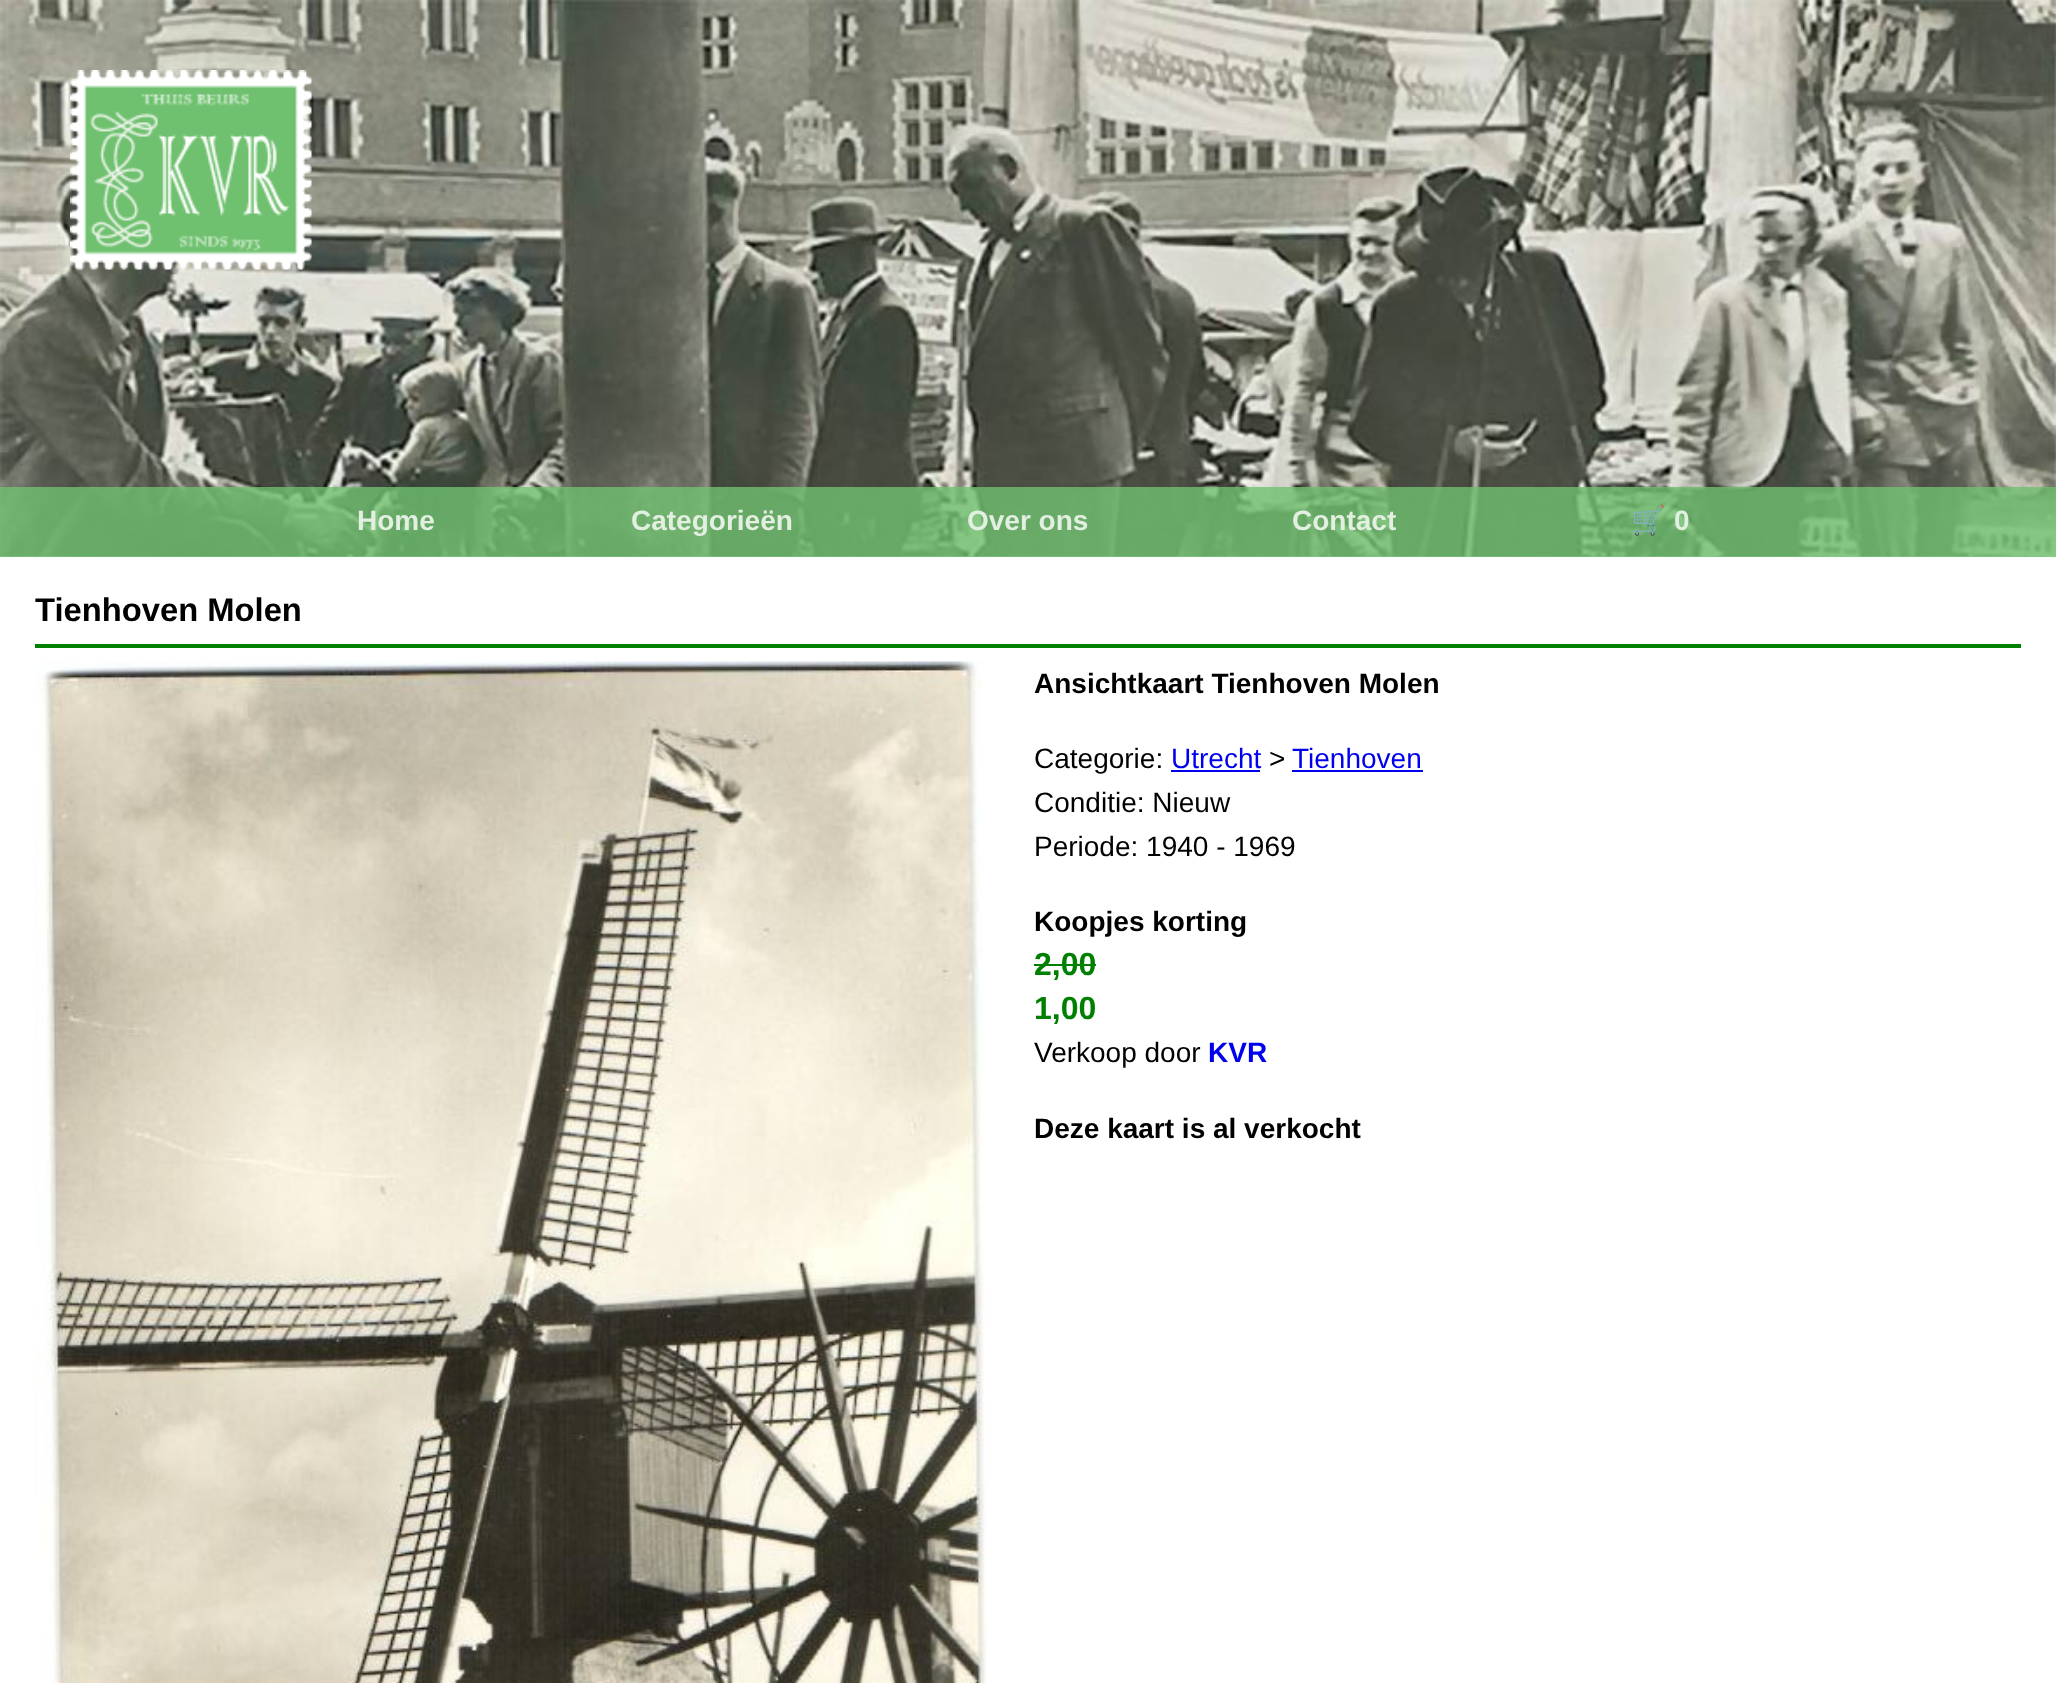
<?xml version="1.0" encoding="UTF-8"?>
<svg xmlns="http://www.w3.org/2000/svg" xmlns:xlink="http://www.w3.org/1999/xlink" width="2056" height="1683">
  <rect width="100%" height="100%" fill="#ffffff" />
  <image x="0" y="0" width="2056" height="557" xlink:href="image1.png" />
  <image x="70" y="70" width="242" height="200" xlink:href="image2.png" />
  <rect y="487" width="2056" height="70" fill="#6fc16f" fill-opacity="0.8" />
  <rect x="35" y="644" width="1986" height="4" fill="#008000" />
  <image x="35" y="661" width="952" height="1022" xlink:href="image3.png" />
  <rect x="1171" y="770" width="89" height="2" fill="#0000ee" />
  <rect x="1292" y="770" width="131" height="2" fill="#0000ee" />
  <rect x="1034" y="964" width="62" height="2" fill="#008000" />
  <text x="357" y="530" style="font-family: Liberation Sans; font-size: 28px; font-weight: bold; fill: #e2efe1">Home</text>
  <text x="631" y="530" style="font-family: Liberation Sans; font-size: 28px; font-weight: bold; fill: #e2efe1">Categorieën</text>
  <text x="967" y="530" style="font-family: Liberation Sans; font-size: 28px; font-weight: bold; fill: #e2efe1">Over ons</text>
  <text x="1292" y="530" style="font-family: Liberation Sans; font-size: 28px; font-weight: bold; fill: #e2efe1">Contact</text>
  <text x="1631" y="530" style="font-family: Noto Color Emoji; font-size: 28px; font-weight: bold; fill: #e2efe1">🛒</text>
  <text x="1674" y="530" style="font-family: Liberation Sans; font-size: 28px; font-weight: bold; fill: #e2efe1">0</text>
  <text x="35" y="621" style="font-family: Liberation Sans; font-size: 32.75px; font-weight: bold; fill: #000000">Tienhoven Molen</text>
  <text x="1034" y="693" style="font-family: Liberation Sans; font-size: 28px; font-weight: bold; fill: #000000">Ansichtkaart Tienhoven Molen</text>
  <text x="1034" y="768" style="font-family: Liberation Sans; font-size: 28px; fill: #000000">Categorie:</text>
  <text x="1171" y="768" style="font-family: Liberation Sans; font-size: 28px; fill: #0000ee">Utrecht</text>
  <text x="1269" y="768" style="font-family: Liberation Sans; font-size: 28px; fill: #000000">&gt;</text>
  <text x="1292" y="768" style="font-family: Liberation Sans; font-size: 28px; fill: #0000ee">Tienhoven</text>
  <text x="1034" y="812" style="font-family: Liberation Sans; font-size: 28px; fill: #000000">Conditie: Nieuw</text>
  <text x="1034" y="856" style="font-family: Liberation Sans; font-size: 28px; fill: #000000">Periode: 1940 - 1969</text>
  <text x="1034" y="931" style="font-family: Liberation Sans; font-size: 28px; font-weight: bold; fill: #000000">Koopjes korting</text>
  <text x="1034" y="975" style="font-family: Liberation Sans; font-size: 32px; font-weight: bold; fill: #008000">2,00</text>
  <text x="1034" y="1019" style="font-family: Liberation Sans; font-size: 32px; font-weight: bold; fill: #008000">1,00</text>
  <text x="1034" y="1062" style="font-family: Liberation Sans; font-size: 28px; fill: #000000">Verkoop door</text>
  <text x="1208" y="1062" style="font-family: Liberation Sans; font-size: 28px; font-weight: bold; fill: #0000ee">KVR</text>
  <text x="1034" y="1138" style="font-family: Liberation Sans; font-size: 28px; font-weight: bold; fill: #000000">Deze kaart is al verkocht</text>
</svg>
